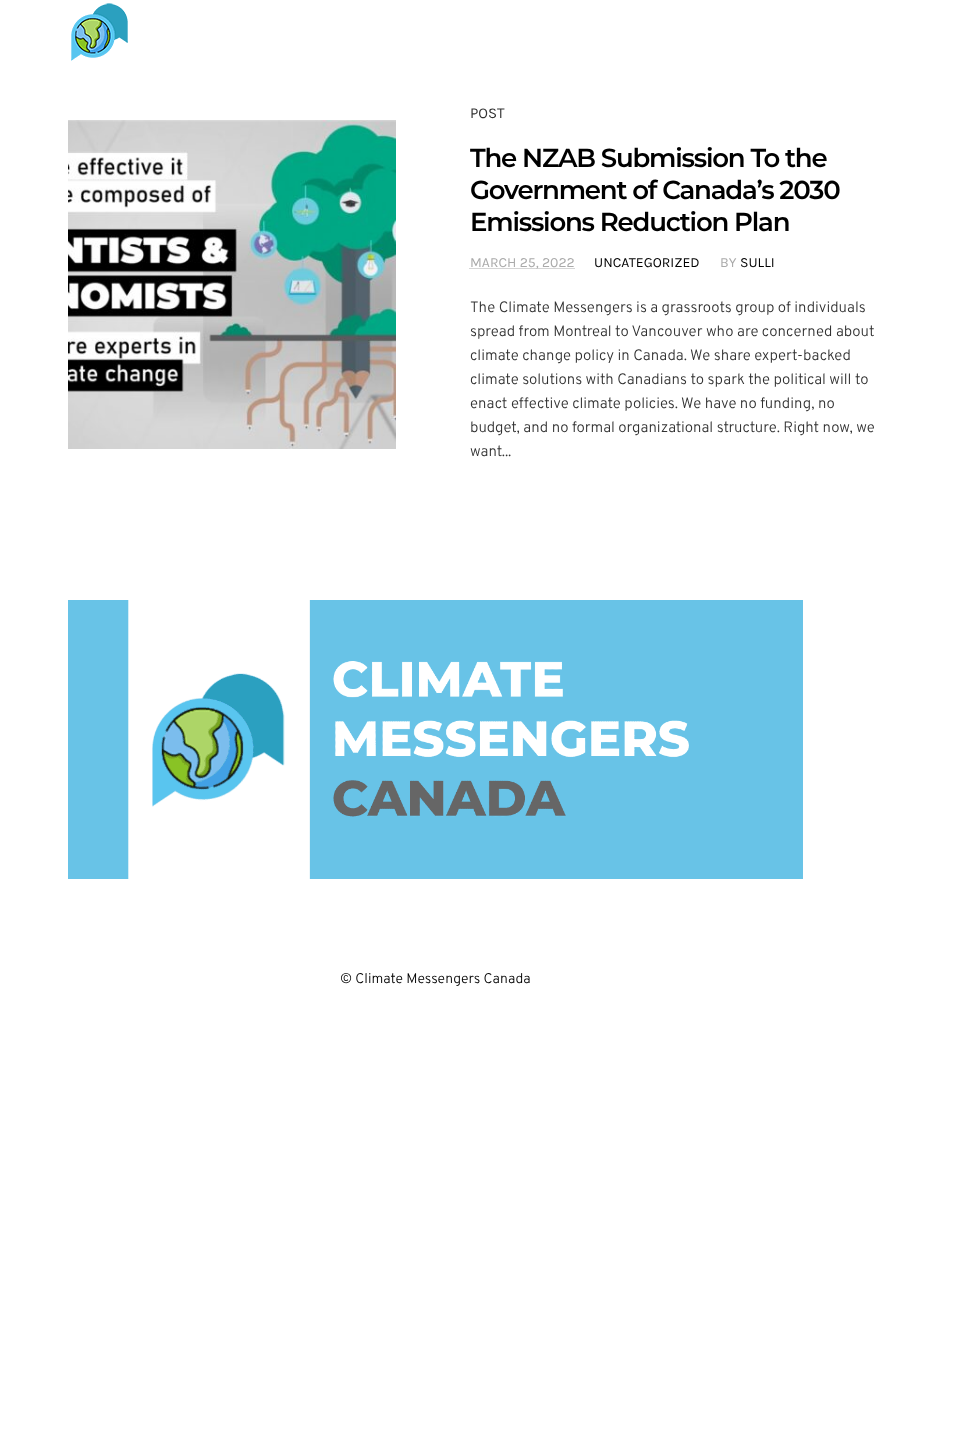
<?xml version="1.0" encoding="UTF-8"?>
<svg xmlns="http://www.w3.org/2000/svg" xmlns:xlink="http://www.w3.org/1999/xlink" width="957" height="1435">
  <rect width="100%" height="100%" fill="#ffffff" />
  <image x="71" y="3" width="57" height="58" xlink:href="image1.png" />
  <image x="68" y="120" width="328" height="329" xlink:href="image2.png" />
  <path d="M 469.5 268.5 h 105" fill="none" stroke="#aaaaaa" stroke-dasharray="1 1" />
  <image x="68" y="600" width="735" height="279" xlink:href="image3.png" />
  <text x="470" y="118" style="font-family: Karla; font-size: 15px; fill: #323232">POST</text>
  <text x="470" y="167" style="font-family: Montserrat; font-size: 26px; font-weight: 600; letter-spacing: -1.2px; fill: #000000">The NZAB Submission To the</text>
  <text x="470" y="199" style="font-family: Montserrat; font-size: 26px; font-weight: 600; letter-spacing: -1.2px; fill: #000000">Government of Canada’s 2030</text>
  <text x="470" y="231" style="font-family: Montserrat; font-size: 26px; font-weight: 600; letter-spacing: -1.2px; fill: #000000">Emissions Reduction Plan</text>
  <text x="470" y="267" style="font-family: Karla; font-size: 14px; fill: #aaaaaa">MARCH 25, 2022</text>
  <text x="594" y="267" style="font-family: Karla; font-size: 14px; fill: #000000">UNCATEGORIZED</text>
  <text x="720" y="267" style="font-family: Karla; font-size: 14px; fill: #aaaaaa">BY</text>
  <text x="740" y="267" style="font-family: Karla; font-size: 14px; fill: #000000">SULLI</text>
  <text x="470" y="312" style="font-family: Overpass; font-size: 15px; font-weight: 300; fill: #323232">The Climate Messengers is a grassroots group of individuals</text>
  <text x="470" y="336" style="font-family: Overpass; font-size: 15px; font-weight: 300; fill: #323232">spread from Montreal to Vancouver who are concerned about</text>
  <text x="470" y="360" style="font-family: Overpass; font-size: 15px; font-weight: 300; fill: #323232">climate change policy in Canada. We share expert-backed</text>
  <text x="470" y="384" style="font-family: Overpass; font-size: 15px; font-weight: 300; fill: #323232">climate solutions with Canadians to spark the political will to</text>
  <text x="470" y="408" style="font-family: Overpass; font-size: 15px; font-weight: 300; fill: #323232">enact effective climate policies. We have no funding, no</text>
  <text x="470" y="432" style="font-family: Overpass; font-size: 15px; font-weight: 300; fill: #323232">budget, and no formal organizational structure. Right now, we</text>
  <text x="470" y="456" style="font-family: Overpass; font-size: 15px; font-weight: 300; fill: #323232">want...</text>
  <text x="340" y="983" style="font-family: Overpass; font-size: 14px; font-weight: 300; fill: #000000">© Climate Messengers Canada</text>
</svg>
